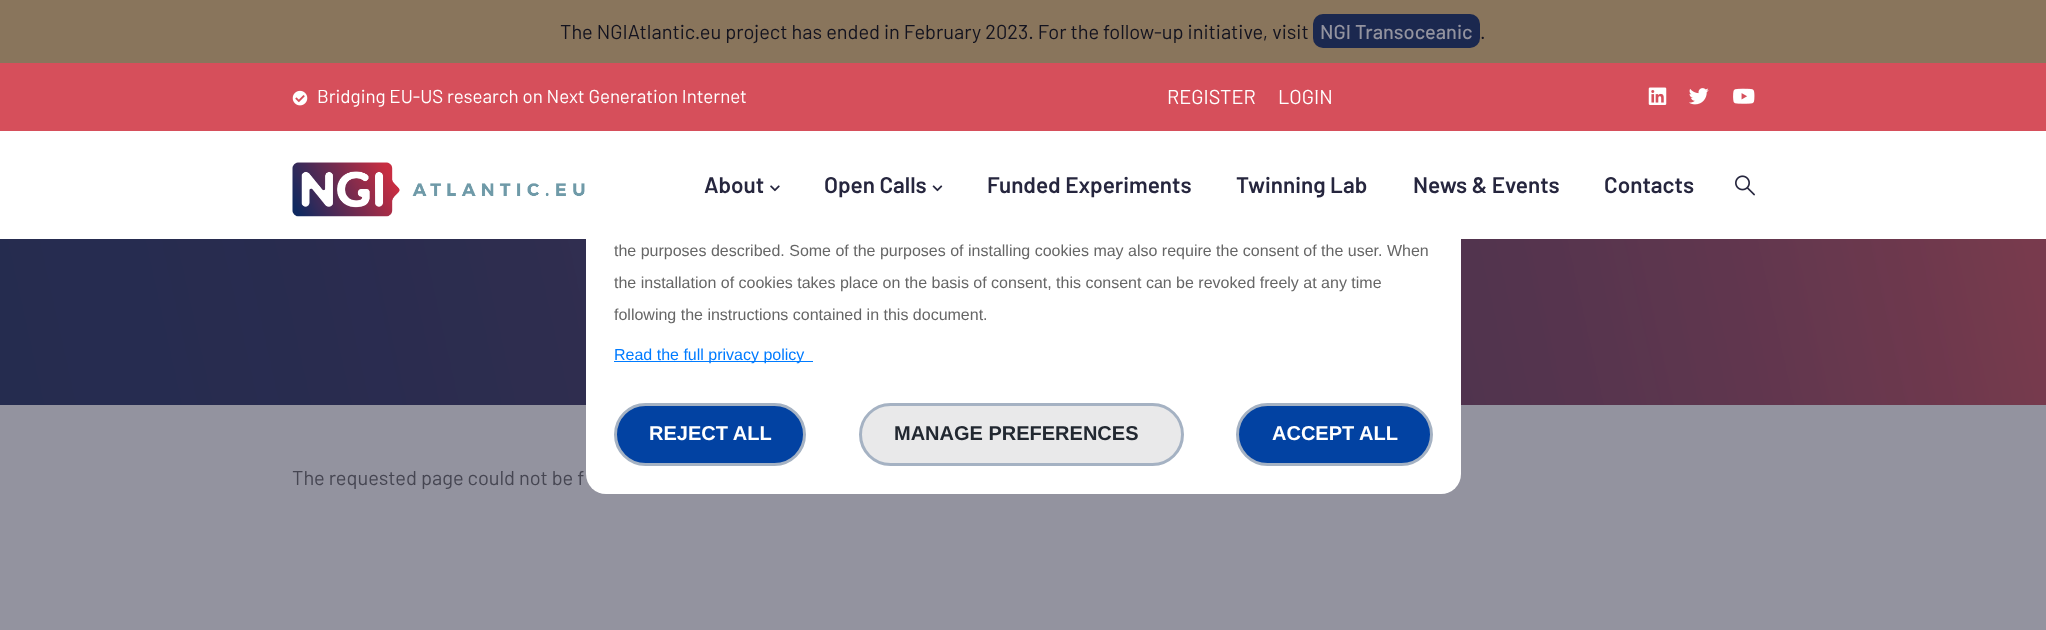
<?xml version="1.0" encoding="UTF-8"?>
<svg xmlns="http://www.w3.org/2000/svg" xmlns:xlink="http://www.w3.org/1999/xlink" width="2046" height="630">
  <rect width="100%" height="100%" fill="#93939f" />
  <rect width="2046" height="63" fill="#89755c" />
  <rect x="1313" y="14" width="167" height="34" rx="10" fill="#1b284f" />
  <image x="0" y="239" width="2046" height="166" xlink:href="image9.png" />
  <rect x="586" y="136" width="875" height="358" rx="20" fill="#ffffff" />
  <rect y="131" width="2046" height="108" fill="#ffffff" />
  <rect y="63" width="2046" height="68" fill="#d64f5b" />
  <image x="292" y="90" width="16" height="16" xlink:href="image1.png" />
  <image x="1648" y="87" width="19" height="18" xlink:href="image2.png" />
  <image x="1689" y="88" width="20" height="17" xlink:href="image3.png" />
  <image x="1733" y="88" width="22" height="16" xlink:href="image4.png" />
  <image x="292" y="162" width="293" height="55" xlink:href="image5.png" />
  <image x="770" y="185" width="10" height="7" xlink:href="image6.png" />
  <image x="932" y="185" width="11" height="7" xlink:href="image7.png" />
  <image x="1735" y="175" width="20" height="21" xlink:href="image8.png" />
  <rect x="614" y="361" width="199" height="1" fill="#007bff" />
  <rect x="615.5" y="404.5" width="189" height="60" rx="30" fill="#0242a2" stroke="#a5b2c3" stroke-width="3" />
  <rect x="860.5" y="404.5" width="322" height="60" rx="30" fill="#e9e9ea" stroke="#a5b2c3" stroke-width="3" />
  <rect x="1237.5" y="404.5" width="194" height="60" rx="30" fill="#0242a2" stroke="#a5b2c3" stroke-width="3" />
  <text x="560" y="39" style="font-family: Barlow; font-size: 20px; fill: #13131f">The NGIAtlantic.eu project has ended in February 2023. For the follow-up initiative, visit</text>
  <text x="1320" y="39" style="font-family: Barlow; font-size: 20px; font-weight: 500; fill: #93939f">NGI Transoceanic</text>
  <text x="1480" y="39" style="font-family: Barlow; font-size: 20px; fill: #13131f">.</text>
  <text x="317" y="103" style="font-family: Barlow; font-size: 18.75px; fill: #ffffff">Bridging EU-US research on Next Generation Internet</text>
  <text x="1167" y="104" style="font-family: Barlow; font-size: 20px; fill: #ffffff">REGISTER</text>
  <text x="1278" y="104" style="font-family: Barlow; font-size: 20px; fill: #ffffff">LOGIN</text>
  <text x="704" y="193" style="font-family: Barlow; font-size: 22.5px; font-weight: 600; fill: #26263e">About</text>
  <text x="824" y="193" style="font-family: Barlow; font-size: 22.5px; font-weight: 600; fill: #26263e">Open Calls</text>
  <text x="987" y="193" style="font-family: Barlow; font-size: 22.5px; font-weight: 600; fill: #26263e">Funded Experiments</text>
  <text x="1236" y="193" style="font-family: Barlow; font-size: 22.5px; font-weight: 600; fill: #26263e">Twinning Lab</text>
  <text x="1413" y="193" style="font-family: Barlow; font-size: 22.5px; font-weight: 600; fill: #26263e">News &amp; Events</text>
  <text x="1604" y="193" style="font-family: Barlow; font-size: 22.5px; font-weight: 600; fill: #26263e">Contacts</text>
  <text x="292" y="485" style="font-family: Barlow; font-size: 20px; fill: #464652">The requested page could not be f</text>
  <text x="614" y="256" style="font-family: Liberation Sans; font-size: 16px; fill: #666666">the purposes described. Some of the purposes of installing cookies may also require the consent of the user. When</text>
  <text x="614" y="288" style="font-family: Liberation Sans; font-size: 16px; fill: #666666">the installation of cookies takes place on the basis of consent, this consent can be revoked freely at any time</text>
  <text x="614" y="320" style="font-family: Liberation Sans; font-size: 16px; fill: #666666">following the instructions contained in this document.</text>
  <text x="614" y="360" style="font-family: Liberation Sans; font-size: 16px; fill: #007bff">Read the full privacy policy</text>
  <text x="649" y="440" style="font-family: Liberation Sans; font-size: 20px; font-weight: bold; fill: #ffffff">REJECT ALL</text>
  <text x="894" y="440" style="font-family: Liberation Sans; font-size: 20px; font-weight: bold; fill: #222831">MANAGE PREFERENCES</text>
  <text x="1272" y="440" style="font-family: Liberation Sans; font-size: 20px; font-weight: bold; fill: #ffffff">ACCEPT ALL</text>
</svg>
